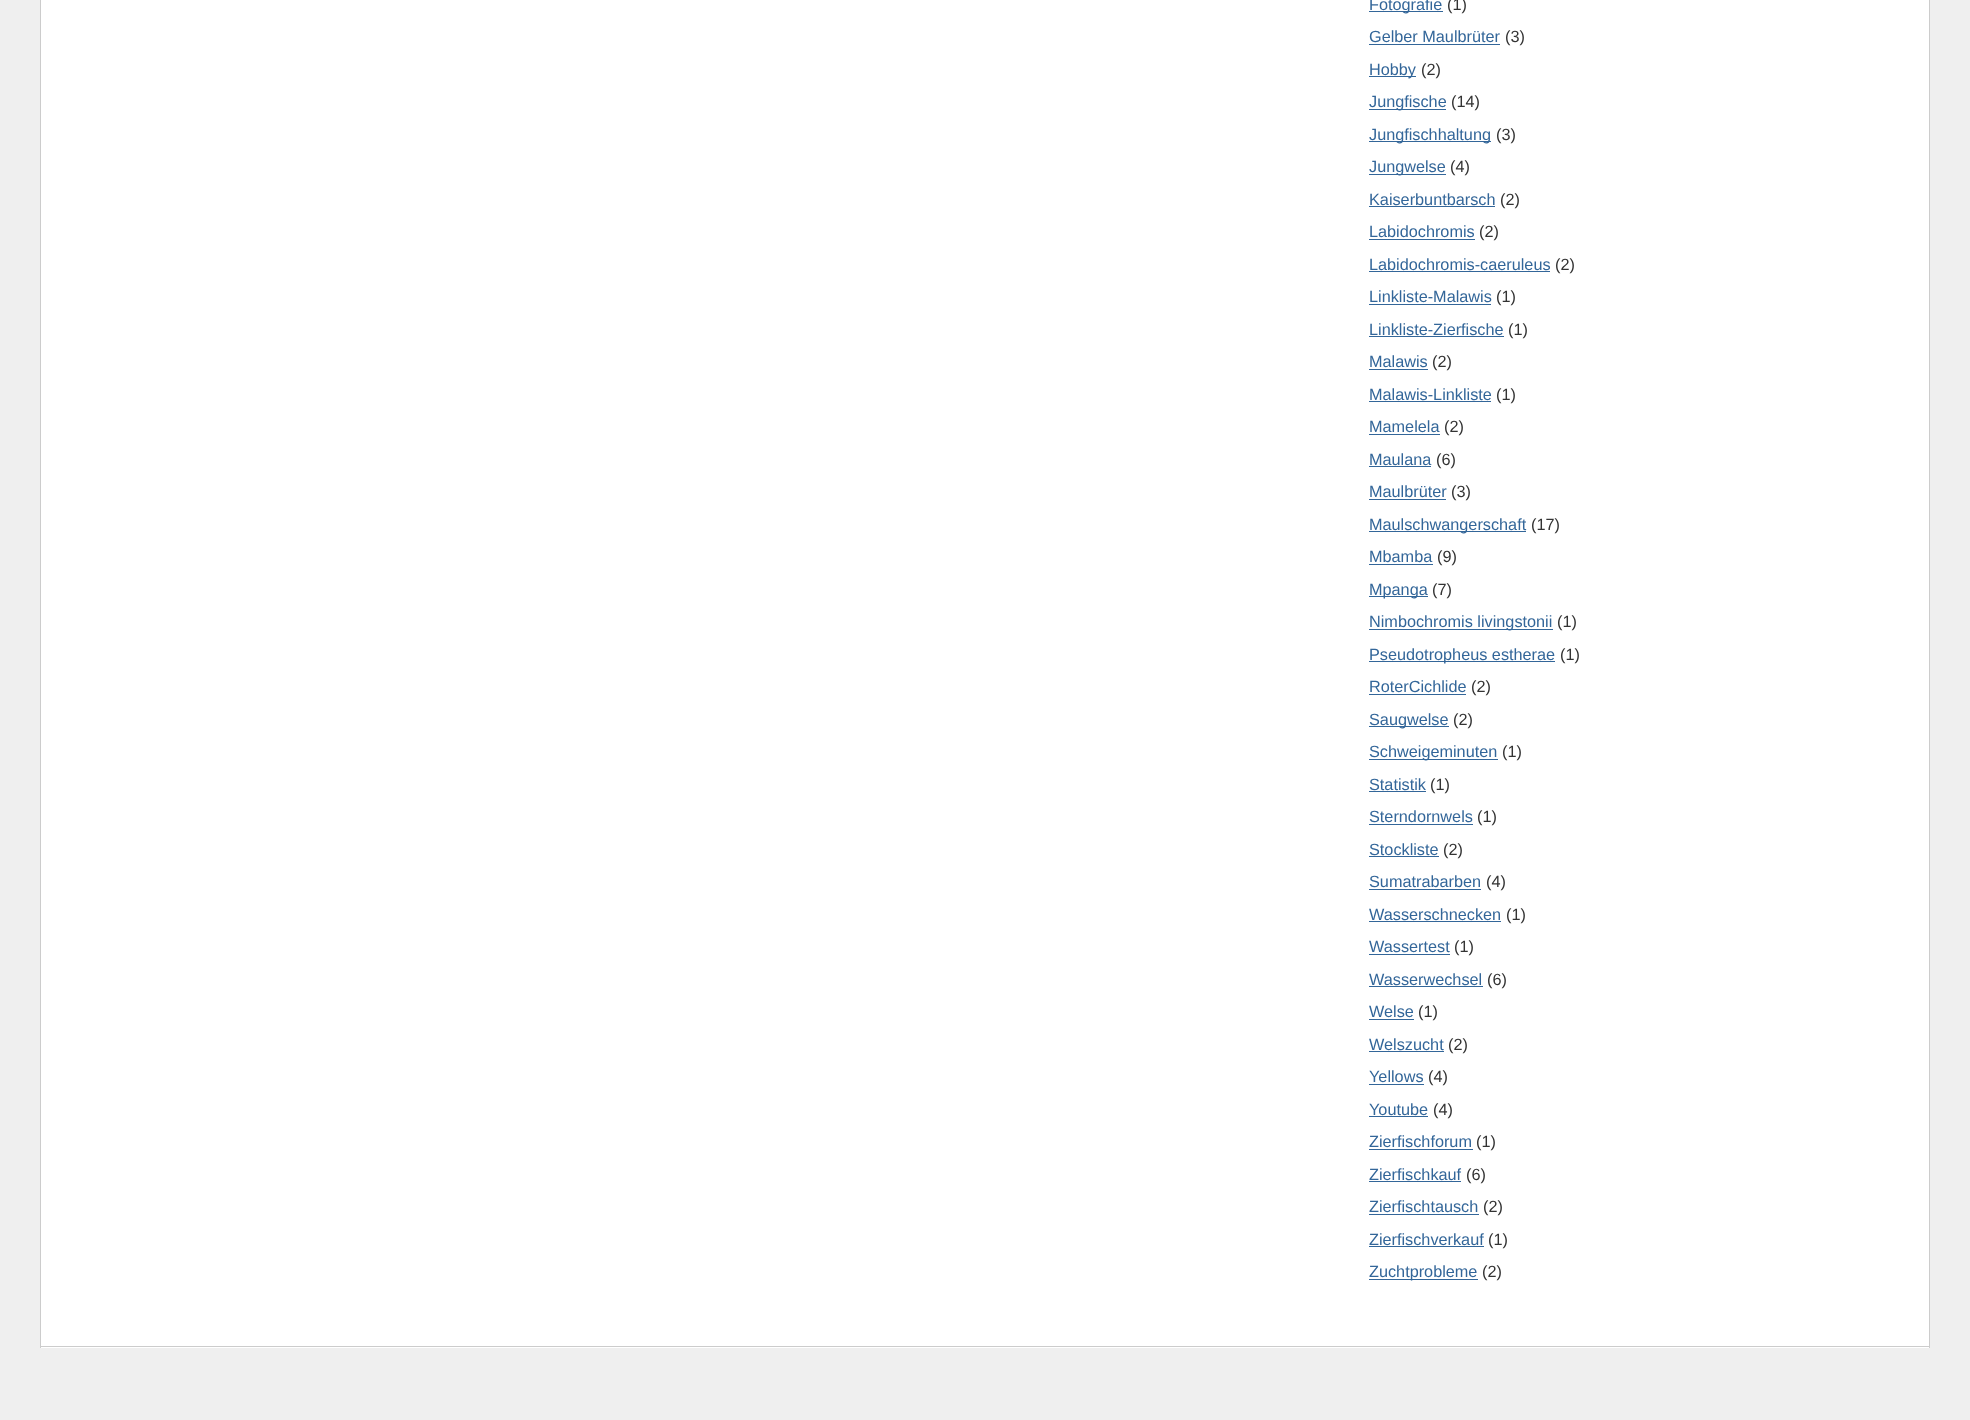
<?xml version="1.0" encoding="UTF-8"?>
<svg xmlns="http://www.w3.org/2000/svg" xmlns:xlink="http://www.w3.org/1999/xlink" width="1970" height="1420">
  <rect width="100%" height="100%" fill="#efefef" />
  <rect x="41" width="1888" height="1348" fill="#ffffff" />
  <rect x="1929" width="1" height="1348" fill="#cccccc" />
  <rect x="40" y="1346" width="1890" height="1" fill="#cccccc" />
  <rect x="40" width="1" height="1348" fill="#cccccc" />
  <rect x="1369" y="11" width="74" height="1" fill="#336699" />
  <rect x="1369" y="44" width="131" height="1" fill="#336699" />
  <rect x="1369" y="76" width="47" height="1" fill="#336699" />
  <rect x="1369" y="109" width="77" height="1" fill="#336699" />
  <rect x="1369" y="141" width="122" height="1" fill="#336699" />
  <rect x="1369" y="174" width="77" height="1" fill="#336699" />
  <rect x="1369" y="206" width="126" height="1" fill="#336699" />
  <rect x="1369" y="239" width="106" height="1" fill="#336699" />
  <rect x="1369" y="271" width="181" height="1" fill="#336699" />
  <rect x="1369" y="304" width="122" height="1" fill="#336699" />
  <rect x="1369" y="336" width="135" height="1" fill="#336699" />
  <rect x="1369" y="369" width="59" height="1" fill="#336699" />
  <rect x="1369" y="401" width="122" height="1" fill="#336699" />
  <rect x="1369" y="434" width="71" height="1" fill="#336699" />
  <rect x="1369" y="466" width="62" height="1" fill="#336699" />
  <rect x="1369" y="499" width="77" height="1" fill="#336699" />
  <rect x="1369" y="531" width="157" height="1" fill="#336699" />
  <rect x="1369" y="564" width="64" height="1" fill="#336699" />
  <rect x="1369" y="596" width="59" height="1" fill="#336699" />
  <rect x="1369" y="629" width="184" height="1" fill="#336699" />
  <rect x="1369" y="661" width="186" height="1" fill="#336699" />
  <rect x="1369" y="694" width="97" height="1" fill="#336699" />
  <rect x="1369" y="726" width="80" height="1" fill="#336699" />
  <rect x="1369" y="759" width="129" height="1" fill="#336699" />
  <rect x="1369" y="791" width="57" height="1" fill="#336699" />
  <rect x="1369" y="824" width="104" height="1" fill="#336699" />
  <rect x="1369" y="856" width="70" height="1" fill="#336699" />
  <rect x="1369" y="889" width="112" height="1" fill="#336699" />
  <rect x="1369" y="921" width="132" height="1" fill="#336699" />
  <rect x="1369" y="954" width="81" height="1" fill="#336699" />
  <rect x="1369" y="986" width="114" height="1" fill="#336699" />
  <rect x="1369" y="1019" width="45" height="1" fill="#336699" />
  <rect x="1369" y="1051" width="75" height="1" fill="#336699" />
  <rect x="1369" y="1084" width="55" height="1" fill="#336699" />
  <rect x="1369" y="1116" width="59" height="1" fill="#336699" />
  <rect x="1369" y="1149" width="104" height="1" fill="#336699" />
  <rect x="1369" y="1181" width="92" height="1" fill="#336699" />
  <rect x="1369" y="1214" width="110" height="1" fill="#336699" />
  <rect x="1369" y="1246" width="115" height="1" fill="#336699" />
  <rect x="1369" y="1279" width="109" height="1" fill="#336699" />
  <text x="1369" y="10" style="font-family: Liberation Sans; font-size: 16.25px; fill: #336699">Fotografie</text>
  <text x="1447" y="10" style="font-family: Liberation Sans; font-size: 16.25px; fill: #333333">(1)</text>
  <text x="1369" y="42" style="font-family: Liberation Sans; font-size: 16.25px; fill: #336699">Gelber Maulbrüter</text>
  <text x="1505" y="42" style="font-family: Liberation Sans; font-size: 16.25px; fill: #333333">(3)</text>
  <text x="1369" y="75" style="font-family: Liberation Sans; font-size: 16.25px; fill: #336699">Hobby</text>
  <text x="1421" y="75" style="font-family: Liberation Sans; font-size: 16.25px; fill: #333333">(2)</text>
  <text x="1369" y="107" style="font-family: Liberation Sans; font-size: 16.25px; fill: #336699">Jungfische</text>
  <text x="1451" y="107" style="font-family: Liberation Sans; font-size: 16.25px; fill: #333333">(14)</text>
  <text x="1369" y="140" style="font-family: Liberation Sans; font-size: 16.25px; fill: #336699">Jungfischhaltung</text>
  <text x="1496" y="140" style="font-family: Liberation Sans; font-size: 16.25px; fill: #333333">(3)</text>
  <text x="1369" y="172" style="font-family: Liberation Sans; font-size: 16.25px; fill: #336699">Jungwelse</text>
  <text x="1450" y="172" style="font-family: Liberation Sans; font-size: 16.25px; fill: #333333">(4)</text>
  <text x="1369" y="205" style="font-family: Liberation Sans; font-size: 16.25px; fill: #336699">Kaiserbuntbarsch</text>
  <text x="1500" y="205" style="font-family: Liberation Sans; font-size: 16.25px; fill: #333333">(2)</text>
  <text x="1369" y="237" style="font-family: Liberation Sans; font-size: 16.25px; fill: #336699">Labidochromis</text>
  <text x="1479" y="237" style="font-family: Liberation Sans; font-size: 16.25px; fill: #333333">(2)</text>
  <text x="1369" y="270" style="font-family: Liberation Sans; font-size: 16.25px; fill: #336699">Labidochromis-caeruleus</text>
  <text x="1555" y="270" style="font-family: Liberation Sans; font-size: 16.25px; fill: #333333">(2)</text>
  <text x="1369" y="302" style="font-family: Liberation Sans; font-size: 16.25px; fill: #336699">Linkliste-Malawis</text>
  <text x="1496" y="302" style="font-family: Liberation Sans; font-size: 16.25px; fill: #333333">(1)</text>
  <text x="1369" y="335" style="font-family: Liberation Sans; font-size: 16.25px; fill: #336699">Linkliste-Zierfische</text>
  <text x="1508" y="335" style="font-family: Liberation Sans; font-size: 16.25px; fill: #333333">(1)</text>
  <text x="1369" y="367" style="font-family: Liberation Sans; font-size: 16.25px; fill: #336699">Malawis</text>
  <text x="1432" y="367" style="font-family: Liberation Sans; font-size: 16.25px; fill: #333333">(2)</text>
  <text x="1369" y="400" style="font-family: Liberation Sans; font-size: 16.25px; fill: #336699">Malawis-Linkliste</text>
  <text x="1496" y="400" style="font-family: Liberation Sans; font-size: 16.25px; fill: #333333">(1)</text>
  <text x="1369" y="432" style="font-family: Liberation Sans; font-size: 16.25px; fill: #336699">Mamelela</text>
  <text x="1444" y="432" style="font-family: Liberation Sans; font-size: 16.25px; fill: #333333">(2)</text>
  <text x="1369" y="465" style="font-family: Liberation Sans; font-size: 16.25px; fill: #336699">Maulana</text>
  <text x="1436" y="465" style="font-family: Liberation Sans; font-size: 16.25px; fill: #333333">(6)</text>
  <text x="1369" y="497" style="font-family: Liberation Sans; font-size: 16.25px; fill: #336699">Maulbrüter</text>
  <text x="1451" y="497" style="font-family: Liberation Sans; font-size: 16.25px; fill: #333333">(3)</text>
  <text x="1369" y="530" style="font-family: Liberation Sans; font-size: 16.25px; fill: #336699">Maulschwangerschaft</text>
  <text x="1531" y="530" style="font-family: Liberation Sans; font-size: 16.25px; fill: #333333">(17)</text>
  <text x="1369" y="562" style="font-family: Liberation Sans; font-size: 16.25px; fill: #336699">Mbamba</text>
  <text x="1437" y="562" style="font-family: Liberation Sans; font-size: 16.25px; fill: #333333">(9)</text>
  <text x="1369" y="595" style="font-family: Liberation Sans; font-size: 16.25px; fill: #336699">Mpanga</text>
  <text x="1432" y="595" style="font-family: Liberation Sans; font-size: 16.25px; fill: #333333">(7)</text>
  <text x="1369" y="627" style="font-family: Liberation Sans; font-size: 16.25px; fill: #336699">Nimbochromis livingstonii</text>
  <text x="1557" y="627" style="font-family: Liberation Sans; font-size: 16.25px; fill: #333333">(1)</text>
  <text x="1369" y="660" style="font-family: Liberation Sans; font-size: 16.25px; fill: #336699">Pseudotropheus estherae</text>
  <text x="1560" y="660" style="font-family: Liberation Sans; font-size: 16.25px; fill: #333333">(1)</text>
  <text x="1369" y="692" style="font-family: Liberation Sans; font-size: 16.25px; fill: #336699">RoterCichlide</text>
  <text x="1471" y="692" style="font-family: Liberation Sans; font-size: 16.25px; fill: #333333">(2)</text>
  <text x="1369" y="725" style="font-family: Liberation Sans; font-size: 16.25px; fill: #336699">Saugwelse</text>
  <text x="1453" y="725" style="font-family: Liberation Sans; font-size: 16.25px; fill: #333333">(2)</text>
  <text x="1369" y="757" style="font-family: Liberation Sans; font-size: 16.25px; fill: #336699">Schweigeminuten</text>
  <text x="1502" y="757" style="font-family: Liberation Sans; font-size: 16.25px; fill: #333333">(1)</text>
  <text x="1369" y="790" style="font-family: Liberation Sans; font-size: 16.25px; fill: #336699">Statistik</text>
  <text x="1430" y="790" style="font-family: Liberation Sans; font-size: 16.25px; fill: #333333">(1)</text>
  <text x="1369" y="822" style="font-family: Liberation Sans; font-size: 16.25px; fill: #336699">Sterndornwels</text>
  <text x="1477" y="822" style="font-family: Liberation Sans; font-size: 16.25px; fill: #333333">(1)</text>
  <text x="1369" y="855" style="font-family: Liberation Sans; font-size: 16.25px; fill: #336699">Stockliste</text>
  <text x="1443" y="855" style="font-family: Liberation Sans; font-size: 16.25px; fill: #333333">(2)</text>
  <text x="1369" y="887" style="font-family: Liberation Sans; font-size: 16.25px; fill: #336699">Sumatrabarben</text>
  <text x="1486" y="887" style="font-family: Liberation Sans; font-size: 16.25px; fill: #333333">(4)</text>
  <text x="1369" y="920" style="font-family: Liberation Sans; font-size: 16.25px; fill: #336699">Wasserschnecken</text>
  <text x="1506" y="920" style="font-family: Liberation Sans; font-size: 16.25px; fill: #333333">(1)</text>
  <text x="1369" y="952" style="font-family: Liberation Sans; font-size: 16.25px; fill: #336699">Wassertest</text>
  <text x="1454" y="952" style="font-family: Liberation Sans; font-size: 16.25px; fill: #333333">(1)</text>
  <text x="1369" y="985" style="font-family: Liberation Sans; font-size: 16.25px; fill: #336699">Wasserwechsel</text>
  <text x="1487" y="985" style="font-family: Liberation Sans; font-size: 16.25px; fill: #333333">(6)</text>
  <text x="1369" y="1017" style="font-family: Liberation Sans; font-size: 16.25px; fill: #336699">Welse</text>
  <text x="1418" y="1017" style="font-family: Liberation Sans; font-size: 16.25px; fill: #333333">(1)</text>
  <text x="1369" y="1050" style="font-family: Liberation Sans; font-size: 16.25px; fill: #336699">Welszucht</text>
  <text x="1448" y="1050" style="font-family: Liberation Sans; font-size: 16.25px; fill: #333333">(2)</text>
  <text x="1369" y="1082" style="font-family: Liberation Sans; font-size: 16.25px; fill: #336699">Yellows</text>
  <text x="1428" y="1082" style="font-family: Liberation Sans; font-size: 16.25px; fill: #333333">(4)</text>
  <text x="1369" y="1115" style="font-family: Liberation Sans; font-size: 16.25px; fill: #336699">Youtube</text>
  <text x="1433" y="1115" style="font-family: Liberation Sans; font-size: 16.25px; fill: #333333">(4)</text>
  <text x="1369" y="1147" style="font-family: Liberation Sans; font-size: 16.25px; fill: #336699">Zierfischforum</text>
  <text x="1476" y="1147" style="font-family: Liberation Sans; font-size: 16.25px; fill: #333333">(1)</text>
  <text x="1369" y="1180" style="font-family: Liberation Sans; font-size: 16.25px; fill: #336699">Zierfischkauf</text>
  <text x="1466" y="1180" style="font-family: Liberation Sans; font-size: 16.25px; fill: #333333">(6)</text>
  <text x="1369" y="1212" style="font-family: Liberation Sans; font-size: 16.25px; fill: #336699">Zierfischtausch</text>
  <text x="1483" y="1212" style="font-family: Liberation Sans; font-size: 16.25px; fill: #333333">(2)</text>
  <text x="1369" y="1245" style="font-family: Liberation Sans; font-size: 16.25px; fill: #336699">Zierfischverkauf</text>
  <text x="1488" y="1245" style="font-family: Liberation Sans; font-size: 16.25px; fill: #333333">(1)</text>
  <text x="1369" y="1277" style="font-family: Liberation Sans; font-size: 16.25px; fill: #336699">Zuchtprobleme</text>
  <text x="1482" y="1277" style="font-family: Liberation Sans; font-size: 16.25px; fill: #333333">(2)</text>
</svg>
